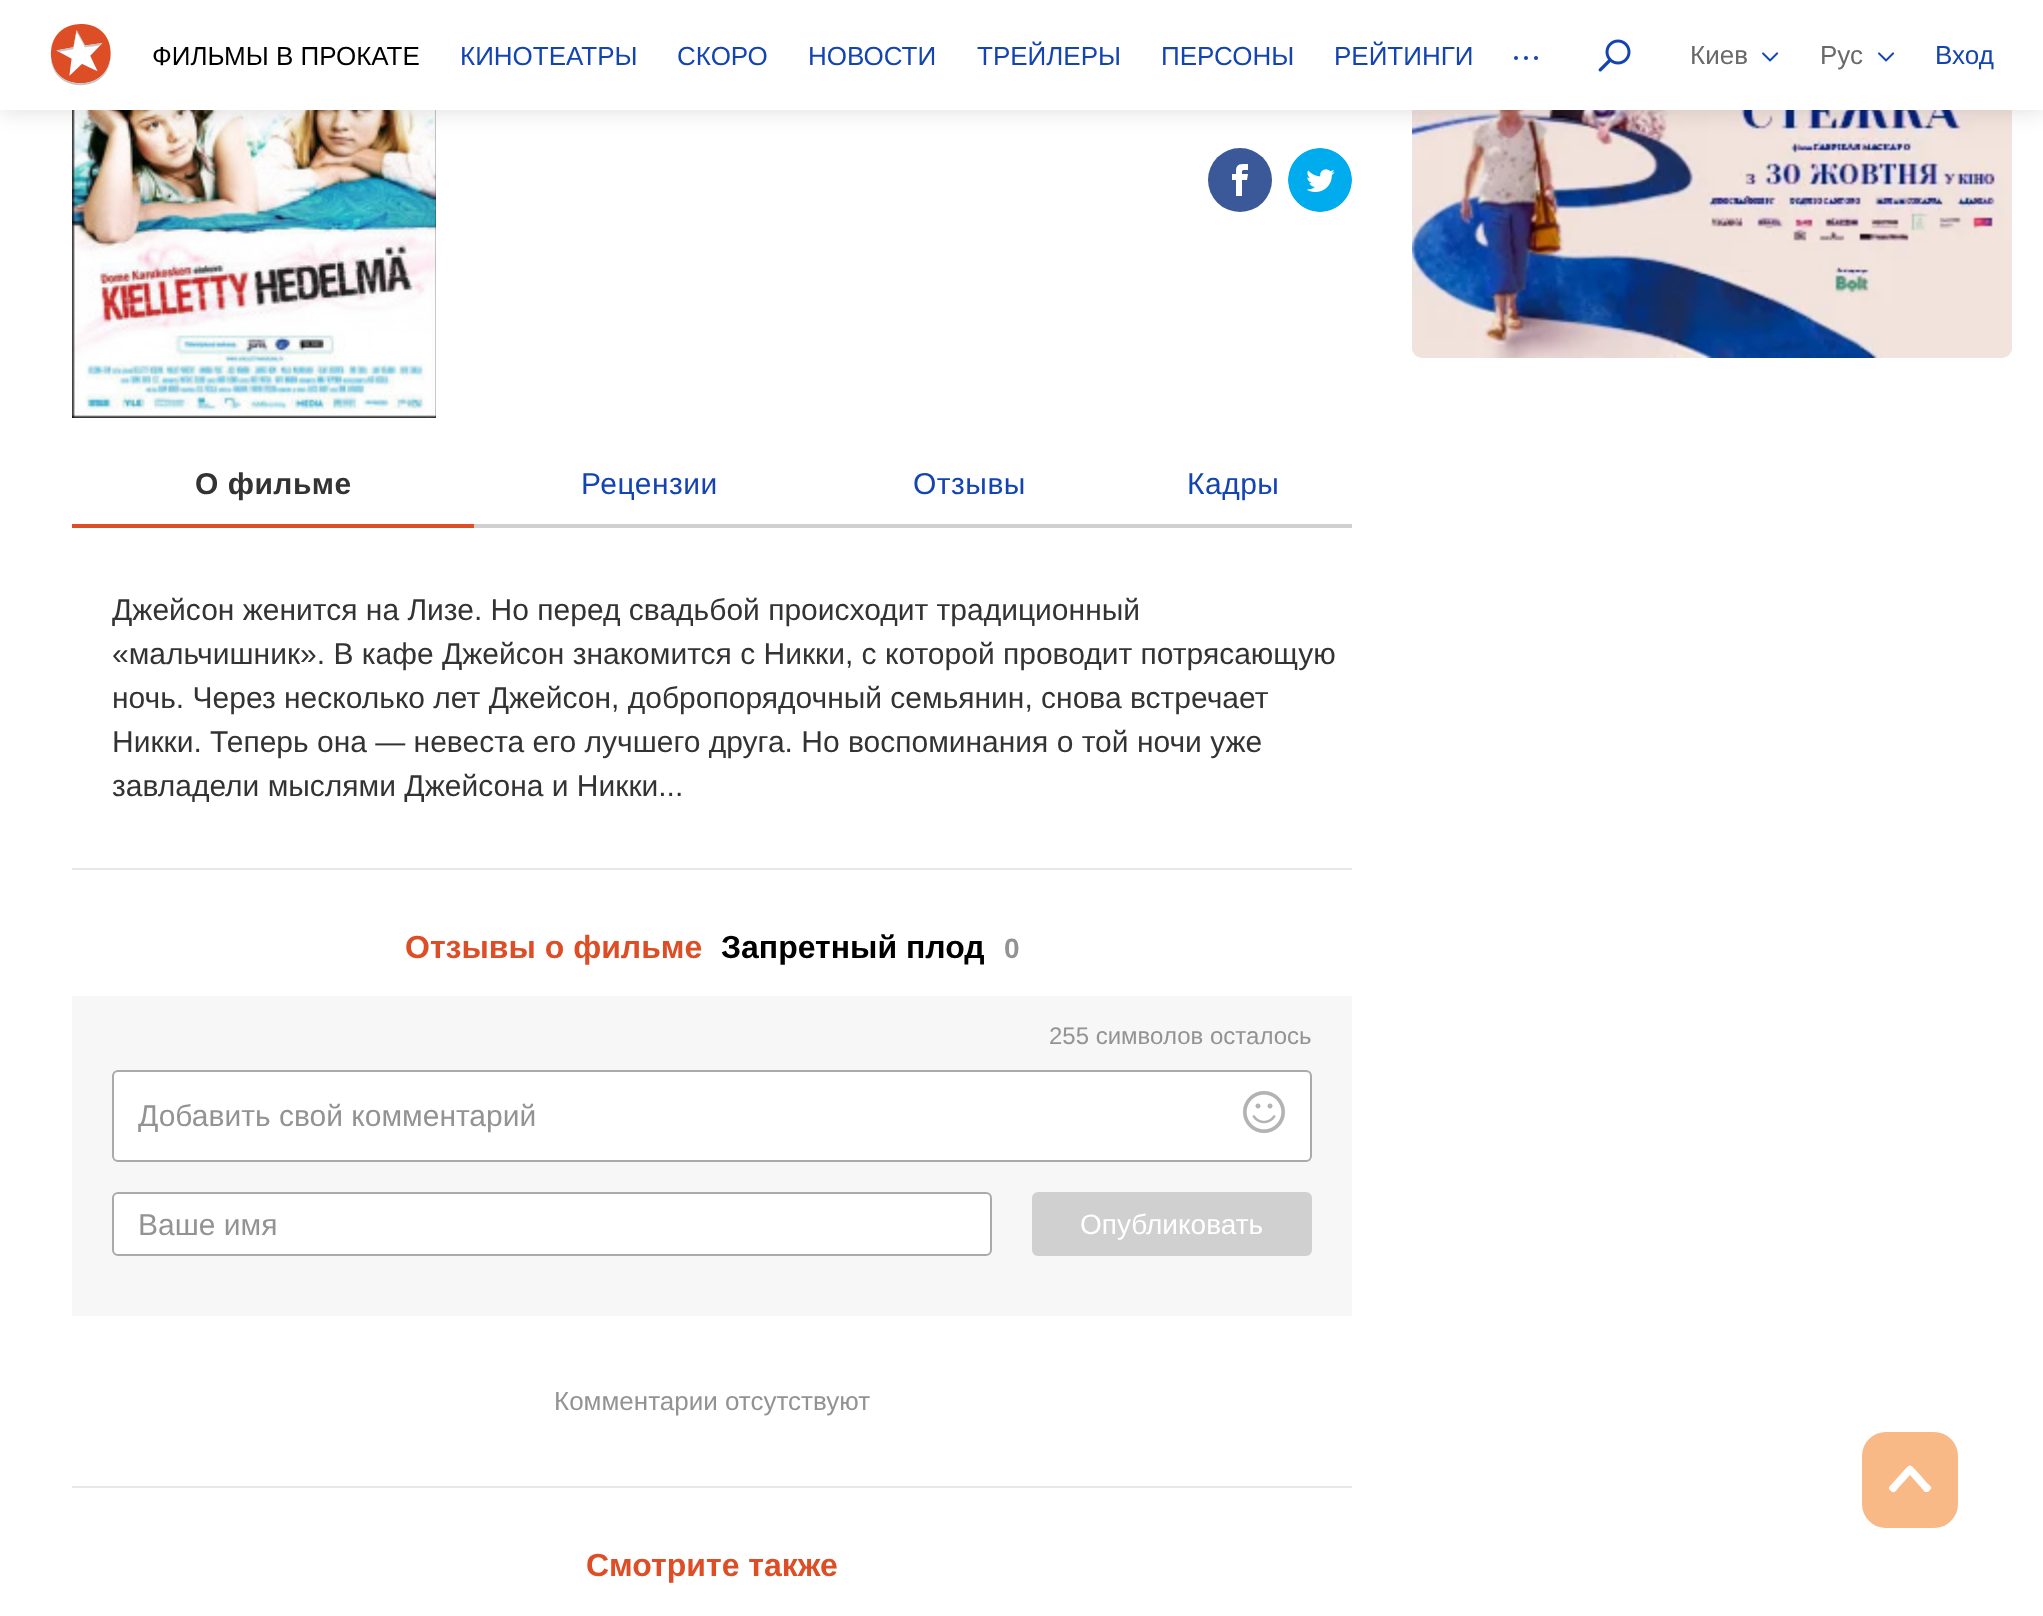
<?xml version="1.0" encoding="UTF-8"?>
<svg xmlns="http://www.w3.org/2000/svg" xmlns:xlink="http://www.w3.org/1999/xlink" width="2043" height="1616">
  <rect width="100%" height="100%" fill="#ffffff" />
  <image x="1412" y="110" width="600" height="248" xlink:href="image4.png" />
  <image x="72" y="110" width="364" height="308" xlink:href="image5.png" />
  <rect y="4" width="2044" height="110" fill="#000000" fill-opacity="0.1" filter="blur(10px)" />
  <rect width="2043" height="110" fill="#ffffff" />
  <image x="50" y="24" width="61" height="62" xlink:href="image1.png" />
  <circle cx="1516" cy="58" r="2" fill="#1344b0" />
  <circle cx="1526" cy="58" r="2" fill="#1344b0" />
  <circle cx="1536" cy="58" r="2" fill="#1344b0" />
  <image x="1598" y="39" width="33" height="33" xlink:href="image2.png" />
  <image x="1762" y="52" width="17" height="10" xlink:href="image3.png" />
  <image x="1878" y="52" width="17" height="10" xlink:href="image3.png" />
  <circle cx="1240" cy="180" r="32" fill="#3b5998" />
  <path d="M 1244 170 h 4 v -6 h -5 c -6 0 -7 3.5 -7 7 v 3 h -4 v 6 h 4 v 16 h 6 v -16 h 5 l 1 -6 h -6 c 0 -1.5 -0.5 -4 2 -4 z" fill="#ffffff" />
  <image x="1288" y="148" width="64" height="64" xlink:href="image6.png" />
  <rect x="72" y="524" width="402" height="4" fill="#de4e26" />
  <rect x="474" y="524" width="878" height="4" fill="#d0d0d0" />
  <rect x="72" y="868" width="1280" height="2" fill="#e8e8e8" />
  <rect x="72" y="1486" width="1280" height="2" fill="#e8e8e8" />
  <rect x="72" y="996" width="1280" height="320" fill="#f7f7f7" />
  <rect x="113" y="1071" width="1198" height="90" rx="5" fill="#ffffff" stroke="#aaaaaa" stroke-width="2" />
  <image x="1243" y="1091" width="42" height="42" xlink:href="image7.png" />
  <rect x="113" y="1193" width="878" height="62" rx="5" fill="#ffffff" stroke="#aaaaaa" stroke-width="2" />
  <rect x="1032" y="1192" width="280" height="64" rx="6" fill="#d0d0d0" />
  <rect x="1862" y="1432" width="96" height="96" rx="24" fill="#f9b986" />
  <path d="M 1928 1492 c 5 -5 4 -4 -1 -9 l -6 -7 c -13 -14 -9 -14 -22 0 l -10 11 v 2 c 5 6 6 3 11 -3 l 10 -11 l 15 17 c 1 0 2 0 3 0 z" fill="#ffffff" fill-rule="evenodd" />
  <text x="152" y="65" style="font-family: Liberation Sans; font-size: 26px; fill: #000000">ФИЛЬМЫ В ПРОКАТЕ</text>
  <text x="460" y="65" style="font-family: Liberation Sans; font-size: 26px; fill: #1344b0">КИНОТЕАТРЫ</text>
  <text x="677" y="65" style="font-family: Liberation Sans; font-size: 26px; fill: #1344b0">СКОРО</text>
  <text x="808" y="65" style="font-family: Liberation Sans; font-size: 26px; fill: #1344b0">НОВОСТИ</text>
  <text x="977" y="65" style="font-family: Liberation Sans; font-size: 26px; fill: #1344b0">ТРЕЙЛЕРЫ</text>
  <text x="1161" y="65" style="font-family: Liberation Sans; font-size: 26px; fill: #1344b0">ПЕРСОНЫ</text>
  <text x="1334" y="65" style="font-family: Liberation Sans; font-size: 26px; fill: #1344b0">РЕЙТИНГИ</text>
  <text x="1690" y="64" style="font-family: Liberation Sans; font-size: 26px; fill: #696969">Киев</text>
  <text x="1820" y="64" style="font-family: Liberation Sans; font-size: 26px; fill: #696969">Рус</text>
  <text x="1935" y="64" style="font-family: Liberation Sans; font-size: 26px; fill: #1344b0">Вход</text>
  <text x="195" y="494" style="font-family: Liberation Sans; font-size: 30px; font-weight: bold; letter-spacing: 0.5px; fill: #333333">О фильме</text>
  <text x="581" y="494" style="font-family: Liberation Sans; font-size: 30px; letter-spacing: 0.5px; fill: #1344b0">Рецензии</text>
  <text x="913" y="494" style="font-family: Liberation Sans; font-size: 30px; letter-spacing: 0.5px; fill: #1344b0">Отзывы</text>
  <text x="1187" y="494" style="font-family: Liberation Sans; font-size: 30px; letter-spacing: 0.5px; fill: #1344b0">Кадры</text>
  <text x="112" y="620" style="font-family: Liberation Sans; font-size: 30px; fill: #333333">Джейсон женится на Лизе. Но перед свадьбой происходит традиционный</text>
  <text x="112" y="664" style="font-family: Liberation Sans; font-size: 30px; fill: #333333">«мальчишник». В кафе Джейсон знакомится с Никки, с которой проводит потрясающую</text>
  <text x="112" y="708" style="font-family: Liberation Sans; font-size: 30px; fill: #333333">ночь. Через несколько лет Джейсон, добропорядочный семьянин, снова встречает</text>
  <text x="112" y="752" style="font-family: Liberation Sans; font-size: 30px; fill: #333333">Никки. Теперь она — невеста его лучшего друга. Но воспоминания о той ночи уже</text>
  <text x="112" y="796" style="font-family: Liberation Sans; font-size: 30px; fill: #333333">завладели мыслями Джейсона и Никки...</text>
  <text x="405" y="958" style="font-family: Liberation Sans; font-size: 32px; font-weight: bold; fill: #de4e26">Отзывы о фильме</text>
  <text x="721" y="958" style="font-family: Liberation Sans; font-size: 32px; font-weight: bold; fill: #000000">Запретный плод</text>
  <text x="1004" y="958" style="font-family: Liberation Sans; font-size: 28px; font-weight: bold; fill: #939393">0</text>
  <text x="1049" y="1044" style="font-family: Liberation Sans; font-size: 24px; fill: #939393">255 символов осталось</text>
  <text x="138" y="1126" style="font-family: Liberation Sans; font-size: 30px; fill: #939393">Добавить свой комментарий</text>
  <text x="138" y="1235" style="font-family: Liberation Sans; font-size: 30px; fill: #939393">Ваше имя</text>
  <text x="1080" y="1234" style="font-family: Liberation Sans; font-size: 28px; fill: #ffffff">Опубликовать</text>
  <text x="554" y="1410" style="font-family: Liberation Sans; font-size: 26px; fill: #939393">Комментарии отсутствуют</text>
  <text x="586" y="1576" style="font-family: Liberation Sans; font-size: 32px; font-weight: bold; fill: #de4e26">Смотрите также</text>
</svg>
